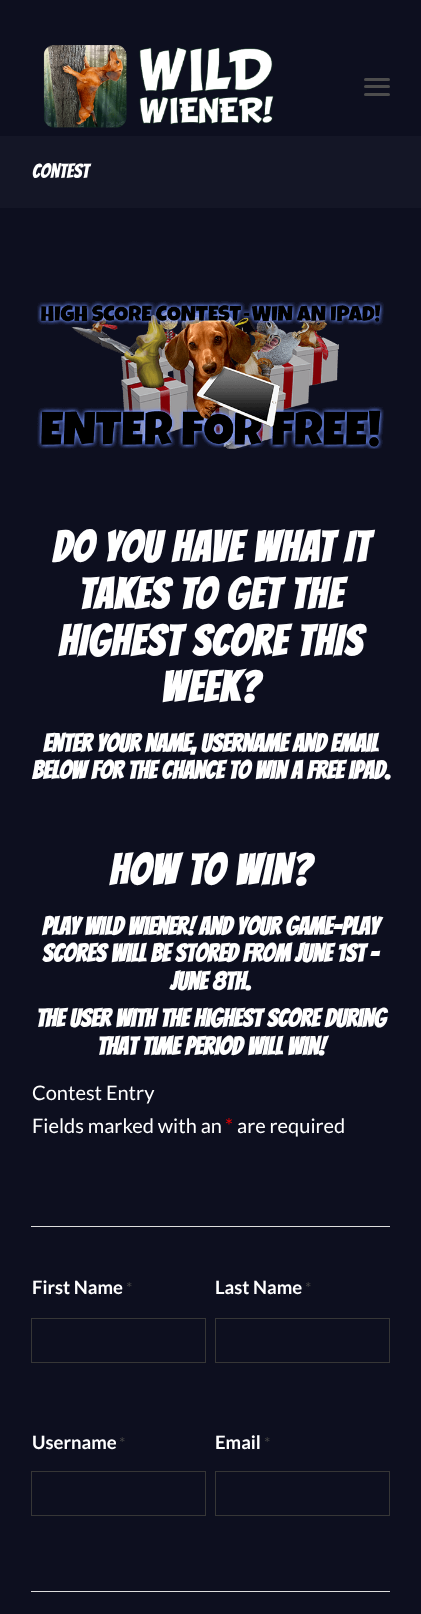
<?xml version="1.0" encoding="UTF-8"?>
<svg xmlns="http://www.w3.org/2000/svg" xmlns:xlink="http://www.w3.org/1999/xlink" width="421" height="1614">
  <rect width="100%" height="100%" fill="#0d0f1f" />
  <image x="43" y="45" width="231" height="83" xlink:href="image1.png" />
  <rect x="364" y="85" width="26" height="3" rx="1.5" fill="#4d4d4d" />
  <rect x="364" y="78" width="26" height="3" rx="1.5" fill="#4d4d4d" />
  <rect x="364" y="93" width="26" height="3" rx="1.5" fill="#4d4d4d" />
  <rect y="136" width="421" height="72" fill="#141626" />
  <image x="37" y="301" width="347" height="148" xlink:href="image2.png" />
  <rect x="31" y="1226" width="359" height="1" fill="#dddddd" />
  <rect x="31.5" y="1318.5" width="174" height="44" fill="none" stroke="#363636" />
  <rect x="215.5" y="1318.5" width="174" height="44" fill="none" stroke="#363636" />
  <rect x="31.5" y="1471.5" width="174" height="44" fill="none" stroke="#363636" />
  <rect x="215.5" y="1471.5" width="174" height="44" fill="none" stroke="#363636" />
  <rect x="31" y="1591" width="359" height="1" fill="#dddddd" />
  <text x="32" y="178" style="font-family: Bangers; font-size: 20px; fill: #ffffff">Contest</text>
  <text x="52" y="562" style="font-family: Bangers; font-size: 42.5px; font-weight: bold; letter-spacing: 1.25px; fill: #ffffff">DO YOU HAVE WHAT IT</text>
  <text x="78" y="609" style="font-family: Bangers; font-size: 42.5px; font-weight: bold; letter-spacing: 1.25px; fill: #ffffff">TAKES TO GET THE</text>
  <text x="58" y="656" style="font-family: Bangers; font-size: 42.5px; font-weight: bold; letter-spacing: 1.25px; fill: #ffffff">HIGHEST SCORE THIS</text>
  <text x="161" y="702" style="font-family: Bangers; font-size: 42.5px; font-weight: bold; letter-spacing: 1.25px; fill: #ffffff">WEEK?</text>
  <text x="43" y="752" style="font-family: Bangers; font-size: 25px; font-weight: bold; fill: #ffffff">Enter your name, username and email</text>
  <text x="32" y="779" style="font-family: Bangers; font-size: 25px; font-weight: bold; fill: #ffffff">below for the chance to win a free iPad.</text>
  <text x="109" y="885" style="font-family: Bangers; font-size: 42.5px; font-weight: bold; letter-spacing: 1.25px; fill: #ffffff">HOW TO WIN?</text>
  <text x="42" y="935" style="font-family: Bangers; font-size: 25px; font-weight: bold; fill: #ffffff">Play Wild Wiener! and your game-play</text>
  <text x="42" y="962" style="font-family: Bangers; font-size: 25px; font-weight: bold; fill: #ffffff">scores will be stored from June 1st –</text>
  <text x="170" y="990" style="font-family: Bangers; font-size: 25px; font-weight: bold; fill: #ffffff">June 8th.</text>
  <text x="36" y="1027" style="font-family: Bangers; font-size: 25px; font-weight: bold; fill: #ffffff">The user with the highest score during</text>
  <text x="97" y="1055" style="font-family: Bangers; font-size: 25px; font-weight: bold; fill: #ffffff">that time period will win!</text>
  <text x="32" y="1100" style="font-family: Lato; font-size: 20px; fill: #ffffff">Contest Entry</text>
  <text x="32" y="1133" style="font-family: Lato; font-size: 20px; fill: #ffffff">Fields marked with an</text>
  <text x="225" y="1133" style="font-family: Lato; font-size: 20px; fill: #e80000">*</text>
  <text x="237" y="1133" style="font-family: Lato; font-size: 20px; fill: #ffffff">are required</text>
  <text x="32" y="1294" style="font-family: Lato; font-size: 18.5px; font-weight: bold; fill: #ffffff">First Name</text>
  <text x="126" y="1294" style="font-family: Lato; font-size: 16px; fill: #444444">*</text>
  <text x="215" y="1294" style="font-family: Lato; font-size: 18.5px; font-weight: bold; fill: #ffffff">Last Name</text>
  <text x="305" y="1294" style="font-family: Lato; font-size: 16px; fill: #444444">*</text>
  <text x="32" y="1449" style="font-family: Lato; font-size: 18.5px; font-weight: bold; fill: #ffffff">Username</text>
  <text x="119" y="1449" style="font-family: Lato; font-size: 16px; fill: #444444">*</text>
  <text x="215" y="1449" style="font-family: Lato; font-size: 18.5px; font-weight: bold; fill: #ffffff">Email</text>
  <text x="264" y="1449" style="font-family: Lato; font-size: 16px; fill: #444444">*</text>
</svg>
